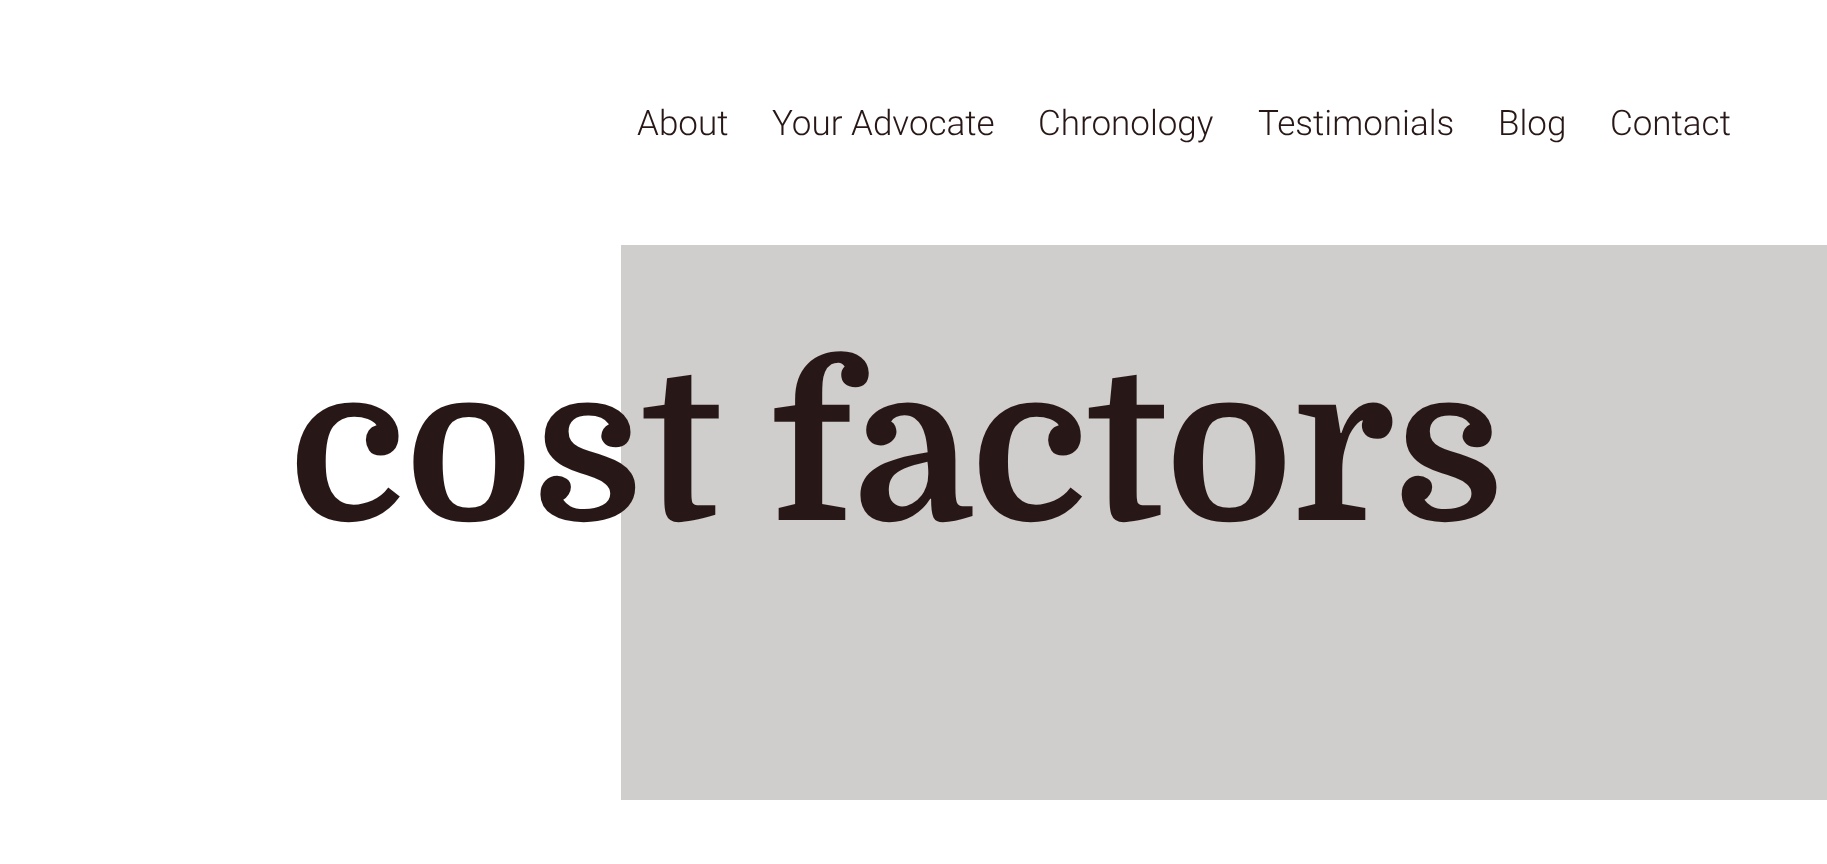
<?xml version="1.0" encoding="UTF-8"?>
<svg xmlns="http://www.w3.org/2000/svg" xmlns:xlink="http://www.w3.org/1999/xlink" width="1827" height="864">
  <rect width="100%" height="100%" fill="#ffffff" />
  <rect x="621" y="245" width="1206" height="555" fill="#d0cecc" />
  <text x="637" y="135" style="font-family: Roboto; font-size: 35px; font-weight: 300; fill: #271716">About</text>
  <text x="772" y="135" style="font-family: Roboto; font-size: 35px; font-weight: 300; fill: #271716">Your Advocate</text>
  <text x="1038" y="135" style="font-family: Roboto; font-size: 35px; font-weight: 300; fill: #271716">Chronology</text>
  <text x="1258" y="135" style="font-family: Roboto; font-size: 35px; font-weight: 300; fill: #271716">Testimonials</text>
  <text x="1498" y="135" style="font-family: Roboto; font-size: 35px; font-weight: 300; fill: #271716">Blog</text>
  <text x="1610" y="135" style="font-family: Roboto; font-size: 35px; font-weight: 300; fill: #271716">Contact</text>
  <text x="289" y="520" style="font-family: Domine; font-size: 213.5px; font-weight: bold; fill: #271716">cost factors</text>
</svg>
